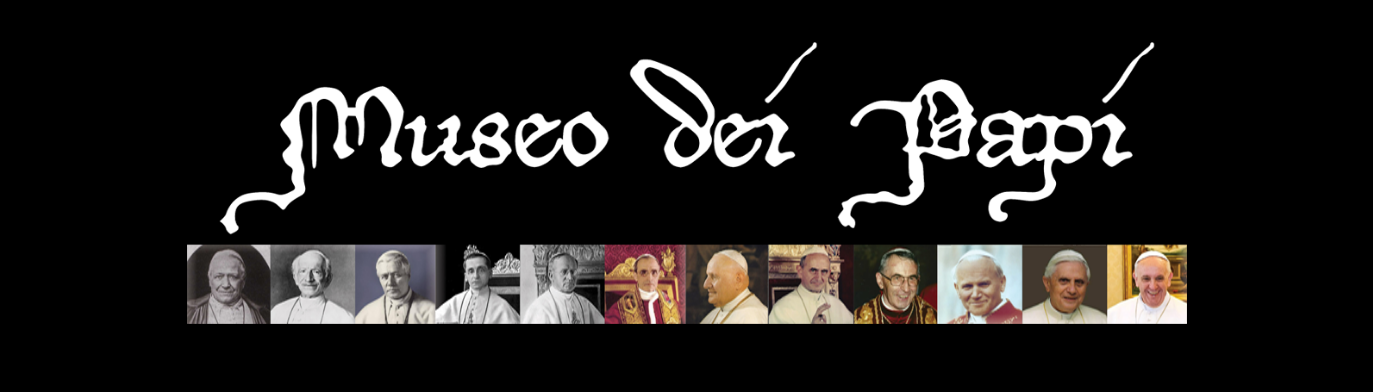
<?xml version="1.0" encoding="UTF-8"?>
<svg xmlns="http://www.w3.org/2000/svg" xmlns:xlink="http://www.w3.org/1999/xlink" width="1373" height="392">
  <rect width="100%" height="100%" fill="#000000" />
  <image x="187" y="42" width="1000" height="282" xlink:href="image1.png" />
</svg>
